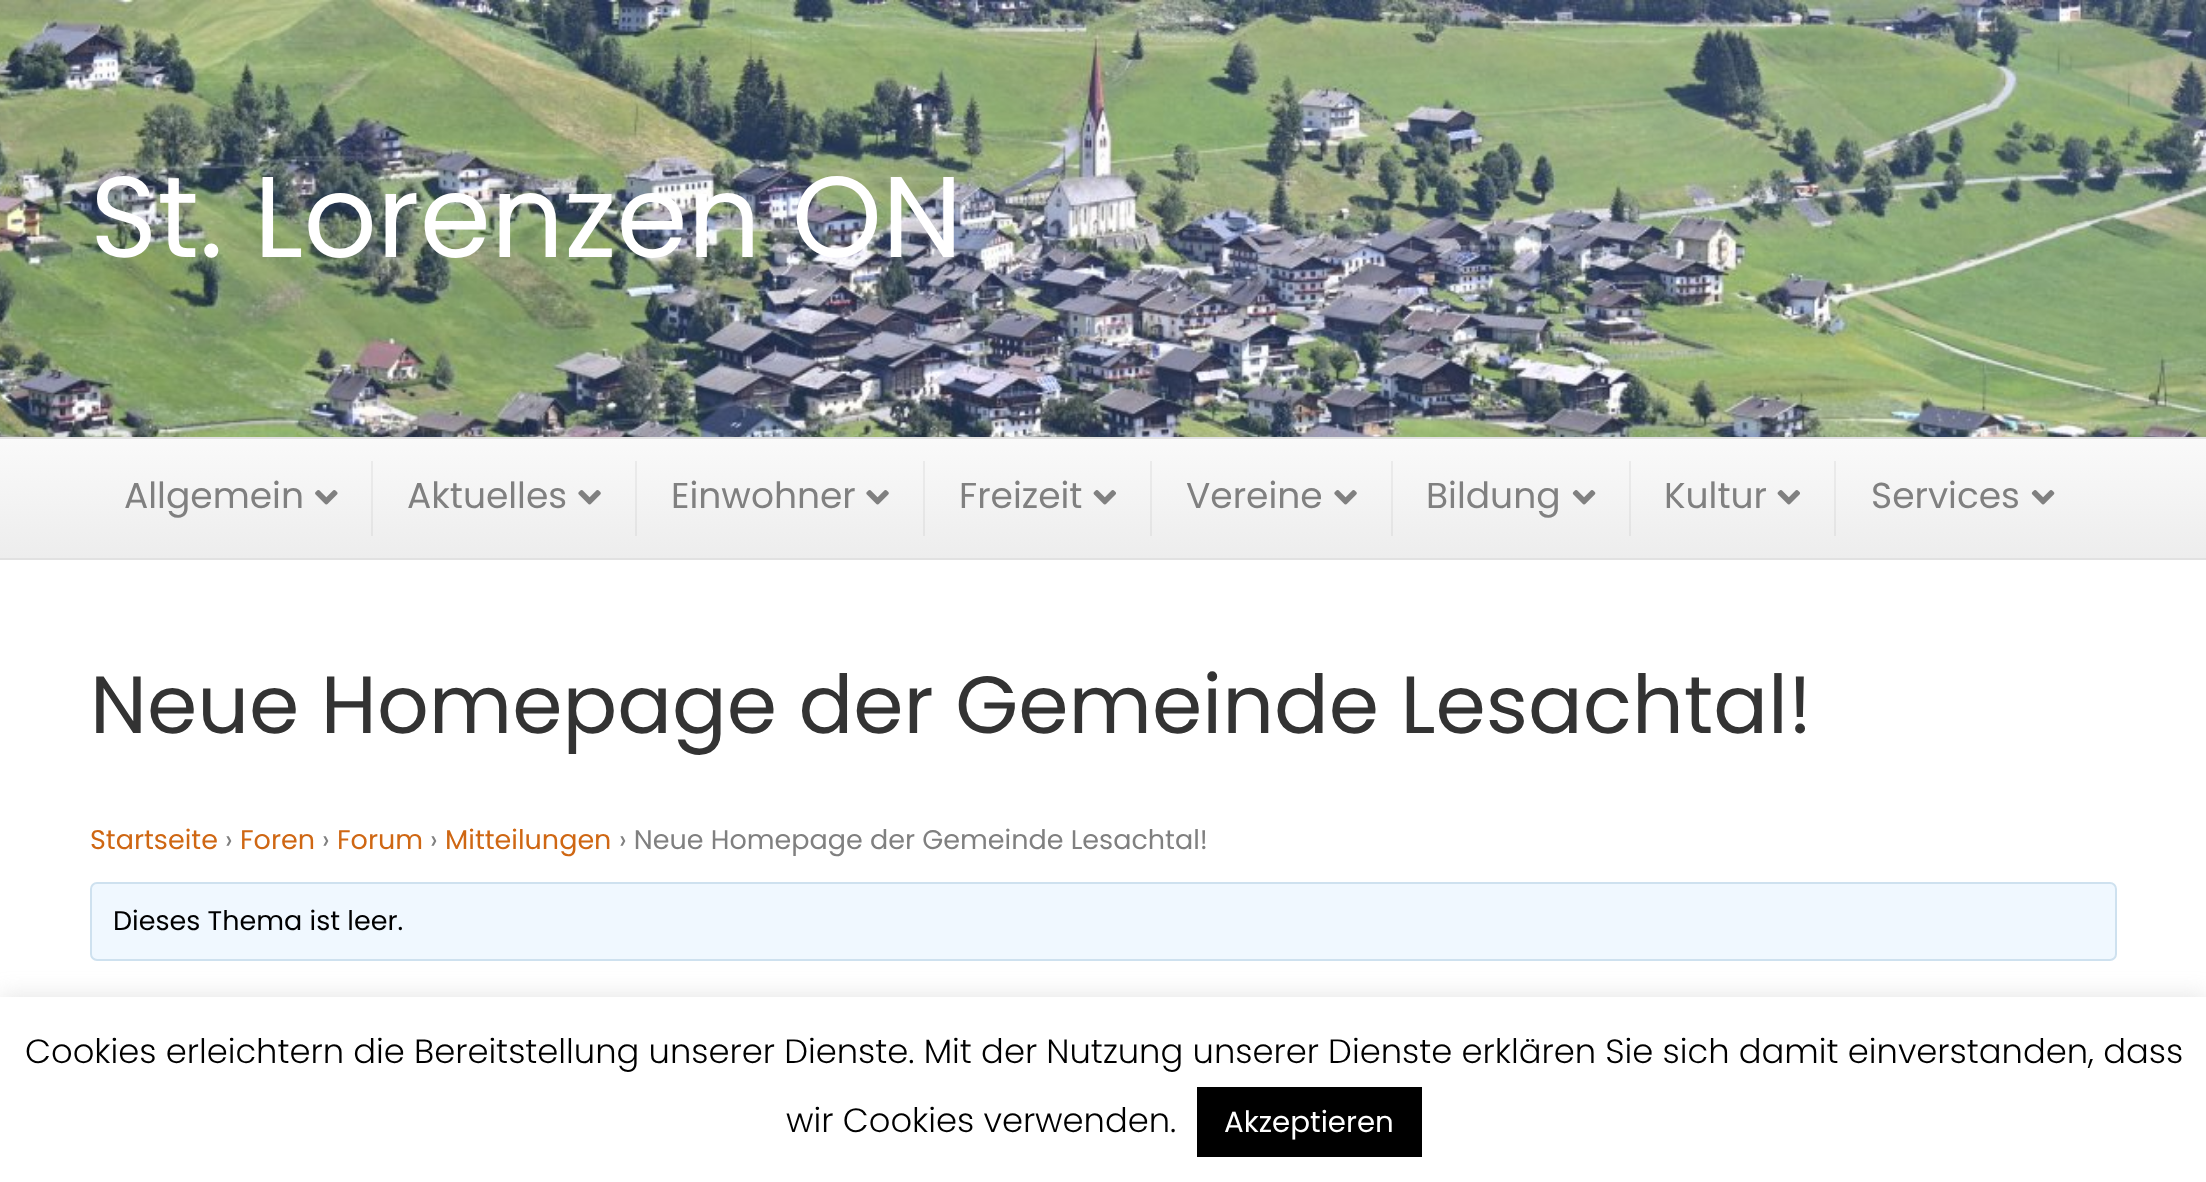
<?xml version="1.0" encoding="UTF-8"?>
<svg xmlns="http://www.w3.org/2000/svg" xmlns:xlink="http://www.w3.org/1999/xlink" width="2206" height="1182">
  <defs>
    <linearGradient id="g1" gradientUnits="userSpaceOnUse" x1="1104" y1="439" x2="1104" y2="558"><stop offset="0" stop-color="#fafafa" /><stop offset="1" stop-color="#ededed" /></linearGradient>
  </defs>
  <rect width="100%" height="100%" fill="#ffffff" />
  <image x="0" y="0" width="2206" height="437" xlink:href="image1.png" />
  <rect y="439" width="2206" height="119" fill="url(#g1)" />
  <rect y="437" width="2206" height="2" fill="#e1e1e1" />
  <rect y="558" width="2206" height="2" fill="#e1e1e1" />
  <rect x="371" y="461" width="2" height="75" fill="#808080" fill-opacity="0.1" />
  <image x="315" y="490" width="23" height="15" xlink:href="image2.png" />
  <rect x="635" y="461" width="2" height="75" fill="#808080" fill-opacity="0.1" />
  <image x="578" y="490" width="23" height="15" xlink:href="image3.png" />
  <rect x="923" y="461" width="2" height="75" fill="#808080" fill-opacity="0.1" />
  <image x="866" y="490" width="23" height="15" xlink:href="image3.png" />
  <rect x="1150" y="461" width="2" height="75" fill="#808080" fill-opacity="0.1" />
  <image x="1093" y="490" width="23" height="15" xlink:href="image4.png" />
  <rect x="1391" y="461" width="2" height="75" fill="#808080" fill-opacity="0.1" />
  <image x="1334" y="490" width="23" height="15" xlink:href="image3.png" />
  <rect x="1629" y="461" width="2" height="75" fill="#808080" fill-opacity="0.1" />
  <image x="1572" y="490" width="24" height="15" xlink:href="image5.png" />
  <rect x="1834" y="461" width="2" height="75" fill="#808080" fill-opacity="0.1" />
  <image x="1777" y="490" width="23" height="15" xlink:href="image4.png" />
  <image x="2031" y="490" width="24" height="15" xlink:href="image5.png" />
  <rect x="91" y="883" width="2025" height="77" rx="6" fill="#f0f8ff" stroke="#cee1ef" stroke-width="2" />
  <rect y="995" width="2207" height="186" fill="#acabab" fill-opacity="0.3" filter="blur(11px)" />
  <rect y="997" width="2206" height="185" fill="#ffffff" />
  <rect x="1197" y="1087" width="225" height="70" fill="#000000" />
  <text x="90" y="257" style="font-family: Poppins; font-size: 114.75px; fill: #ffffff">St. Lorenzen ON</text>
  <text x="124" y="508" style="font-family: Poppins; font-size: 36px; fill: #808080">Allgemein</text>
  <text x="407" y="508" style="font-family: Poppins; font-size: 36px; fill: #808080">Aktuelles</text>
  <text x="671" y="508" style="font-family: Poppins; font-size: 36px; fill: #808080">Einwohner</text>
  <text x="959" y="508" style="font-family: Poppins; font-size: 36px; fill: #808080">Freizeit</text>
  <text x="1186" y="508" style="font-family: Poppins; font-size: 36px; fill: #808080">Vereine</text>
  <text x="1426" y="508" style="font-family: Poppins; font-size: 36px; fill: #808080">Bildung</text>
  <text x="1664" y="508" style="font-family: Poppins; font-size: 36px; fill: #808080">Kultur</text>
  <text x="1871" y="508" style="font-family: Poppins; font-size: 36px; fill: #808080">Services</text>
  <text x="90" y="733" style="font-family: Poppins; font-size: 81px; fill: #333333">Neue Homepage der Gemeinde Lesachtal!</text>
  <text x="90" y="849" style="font-family: Poppins; font-size: 27px; fill: #cf6713">Startseite</text>
  <text x="225" y="849" style="font-family: Poppins; font-size: 27px; fill: #808080">›</text>
  <text x="240" y="849" style="font-family: Poppins; font-size: 27px; fill: #cf6713">Foren</text>
  <text x="322" y="849" style="font-family: Poppins; font-size: 27px; fill: #808080">›</text>
  <text x="337" y="849" style="font-family: Poppins; font-size: 27px; fill: #cf6713">Forum</text>
  <text x="430" y="849" style="font-family: Poppins; font-size: 27px; fill: #808080">›</text>
  <text x="445" y="849" style="font-family: Poppins; font-size: 27px; fill: #cf6713">Mitteilungen</text>
  <text x="619" y="849" style="font-family: Poppins; font-size: 27px; fill: #808080">› Neue Homepage der Gemeinde Lesachtal!</text>
  <text x="113" y="930" style="font-family: Poppins; font-size: 27px; fill: #000000">Dieses Thema ist leer.</text>
  <text x="25" y="1063" style="font-family: Poppins; font-size: 33.75px; font-weight: 300; fill: #000000">Cookies erleichtern die Bereitstellung unserer Dienste. Mit der Nutzung unserer Dienste erklären Sie sich damit einverstanden, dass</text>
  <text x="786" y="1132" style="font-family: Poppins; font-size: 33.75px; font-weight: 300; fill: #000000">wir Cookies verwenden.</text>
  <text x="1224" y="1132" style="font-family: Poppins; font-size: 29.25px; fill: #ffffff">Akzeptieren</text>
</svg>
